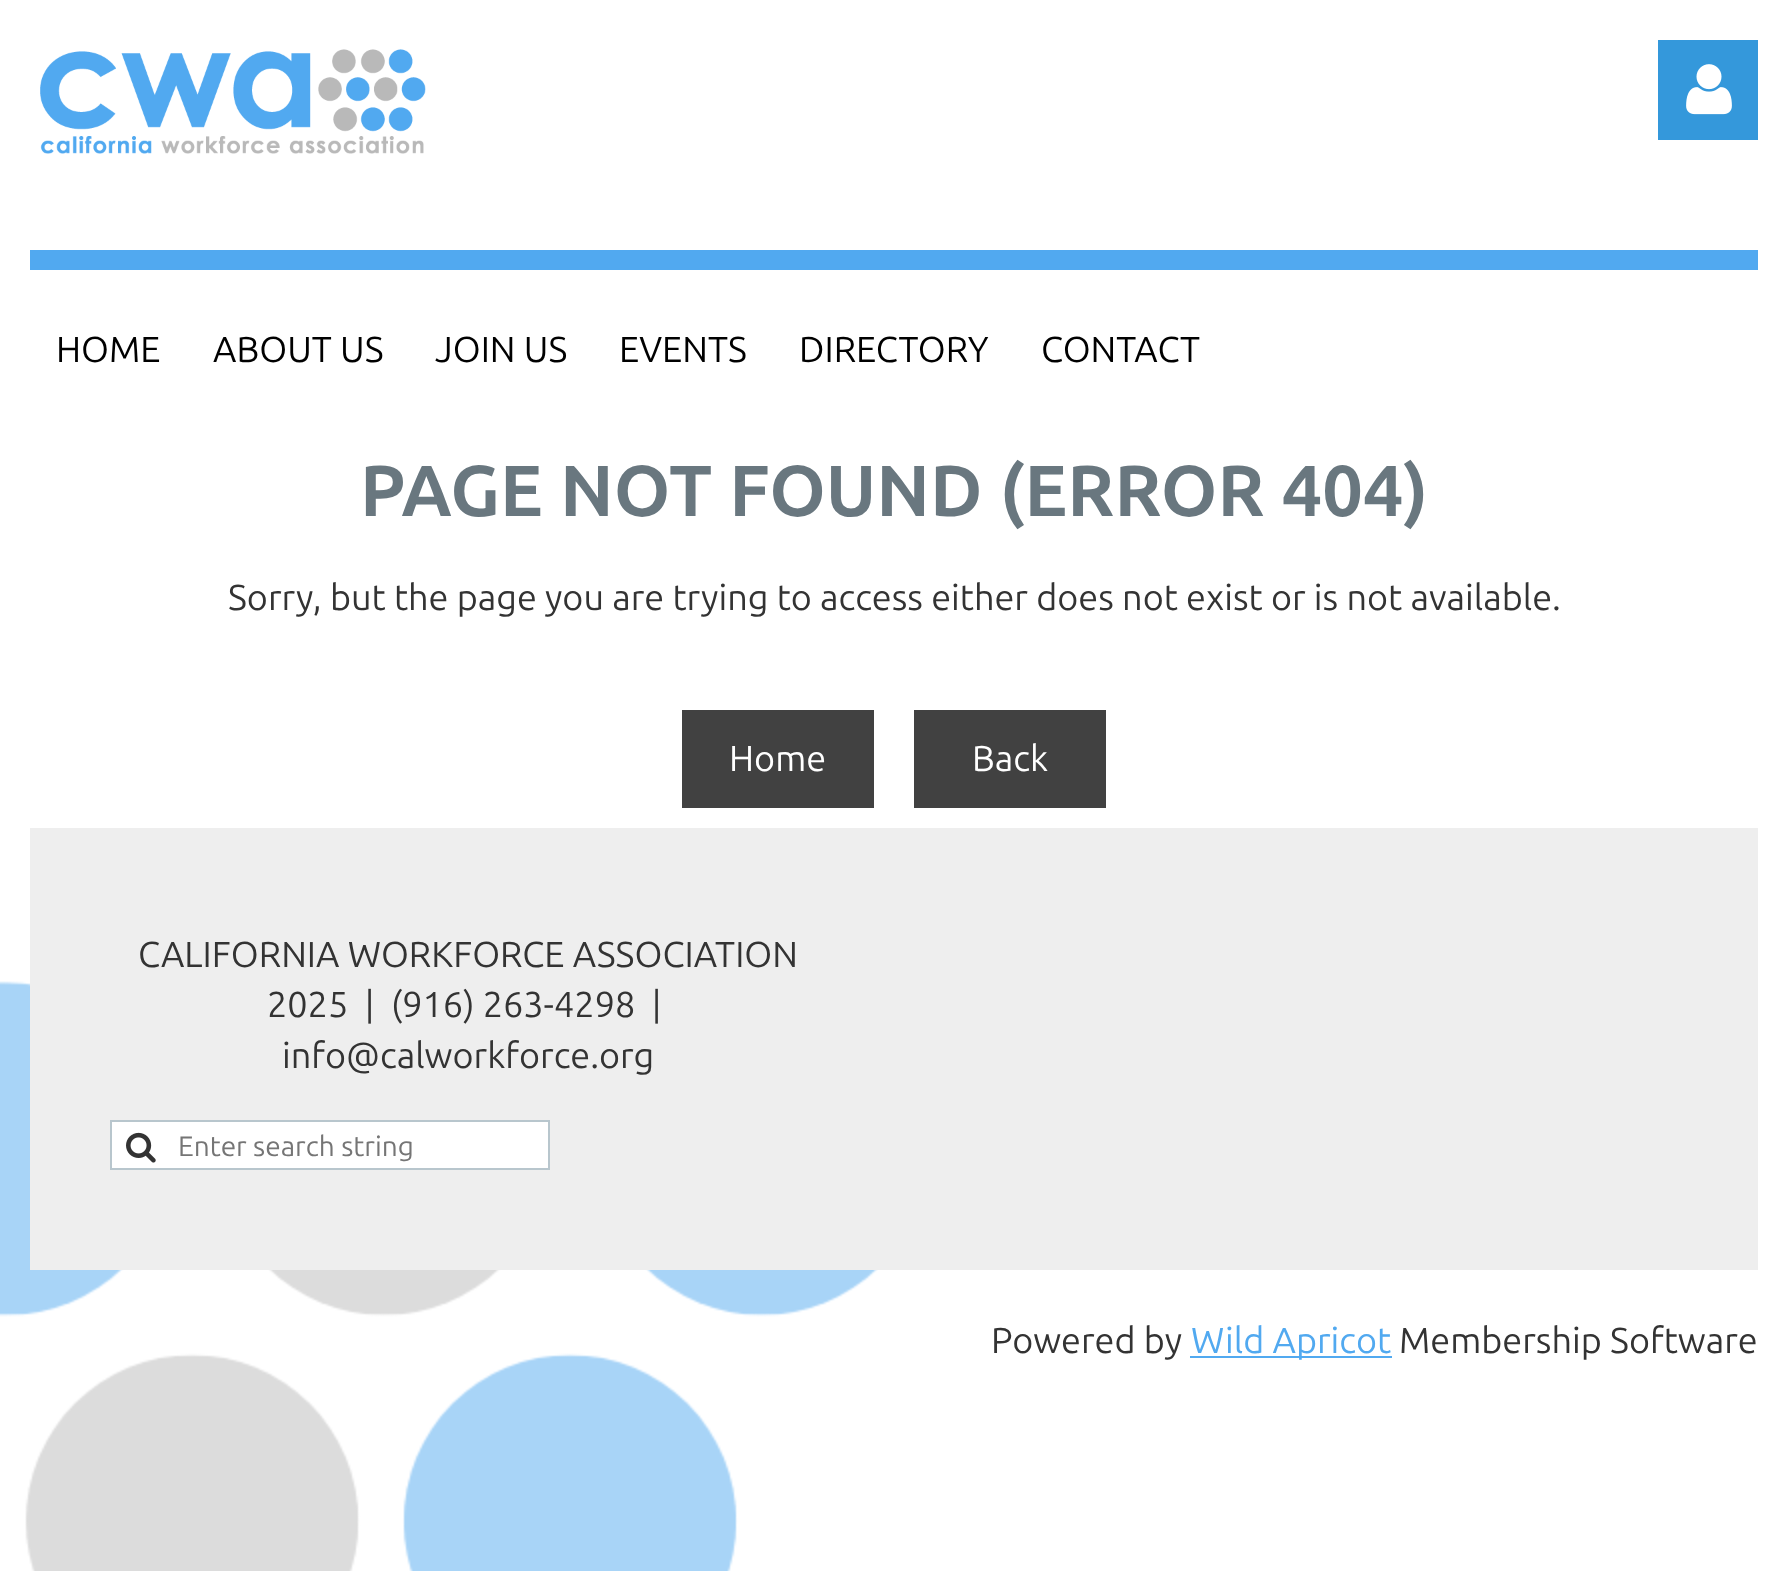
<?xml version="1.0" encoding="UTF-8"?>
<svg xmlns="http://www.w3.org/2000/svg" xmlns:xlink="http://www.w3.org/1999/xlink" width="1788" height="1571">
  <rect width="100%" height="100%" fill="#ffffff" />
  <image x="0" y="981" width="878" height="590" xlink:href="image1.png" />
  <image x="40" y="49" width="386" height="105" xlink:href="image2.png" />
  <rect x="1658" y="40" width="100" height="100" fill="#3498db" />
  <image x="1686" y="64" width="46" height="51" xlink:href="image3.png" />
  <rect x="30" y="250" width="1728" height="20" fill="#51a9f0" />
  <rect x="682" y="710" width="192" height="98" fill="#414141" />
  <rect x="914" y="710" width="192" height="98" fill="#414141" />
  <rect x="30" y="828" width="1728" height="442" fill="#eeeeee" />
  <rect x="111" y="1121" width="438" height="48" fill="#ffffff" stroke="#b8c6cd" stroke-width="2" />
  <image x="126" y="1132" width="30" height="31" xlink:href="image4.png" />
  <rect x="1190" y="1356" width="202" height="2" fill="#51a9f0" />
  <text x="56" y="362" style="font-family: Ubuntu; font-size: 36px; fill: #000000">HOME</text>
  <text x="213" y="362" style="font-family: Ubuntu; font-size: 36px; fill: #000000">ABOUT US</text>
  <text x="435" y="362" style="font-family: Ubuntu; font-size: 36px; fill: #000000">JOIN US</text>
  <text x="619" y="362" style="font-family: Ubuntu; font-size: 36px; fill: #000000">EVENTS</text>
  <text x="799" y="362" style="font-family: Ubuntu; font-size: 36px; fill: #000000">DIRECTORY</text>
  <text x="1041" y="362" style="font-family: Ubuntu; font-size: 36px; fill: #000000">CONTACT</text>
  <text x="360" y="516" style="font-family: Ubuntu; font-size: 72px; font-weight: bold; fill: #69777f">PAGE NOT FOUND (ERROR 404)</text>
  <text x="228" y="610" style="font-family: Ubuntu; font-size: 36px; fill: #333333">Sorry, but the page you are trying to access either does not exist or is not available.</text>
  <text x="729" y="771" style="font-family: Ubuntu; font-size: 36px; fill: #ffffff">Home</text>
  <text x="972" y="771" style="font-family: Ubuntu; font-size: 36px; fill: #ffffff">Back</text>
  <text x="138" y="967" style="font-family: Ubuntu; font-size: 36px; fill: #333333">CALIFORNIA WORKFORCE ASSOCIATION</text>
  <text x="267" y="1017" style="font-family: Ubuntu; font-size: 36px; fill: #333333" xml:space="preserve">2025  |  (916) 263-4298  |</text>
  <text x="282" y="1068" style="font-family: Ubuntu; font-size: 36px; fill: #333333">info@calworkforce.org</text>
  <text x="178" y="1156" style="font-family: Ubuntu; font-size: 28px; fill: #757575">Enter search string</text>
  <text x="991" y="1353" style="font-family: Ubuntu; font-size: 36px; fill: #333333">Powered by</text>
  <text x="1191" y="1353" style="font-family: Ubuntu; font-size: 36px; fill: #51a9f0">Wild Apricot</text>
  <text x="1399" y="1353" style="font-family: Ubuntu; font-size: 36px; fill: #333333">Membership Software</text>
</svg>
